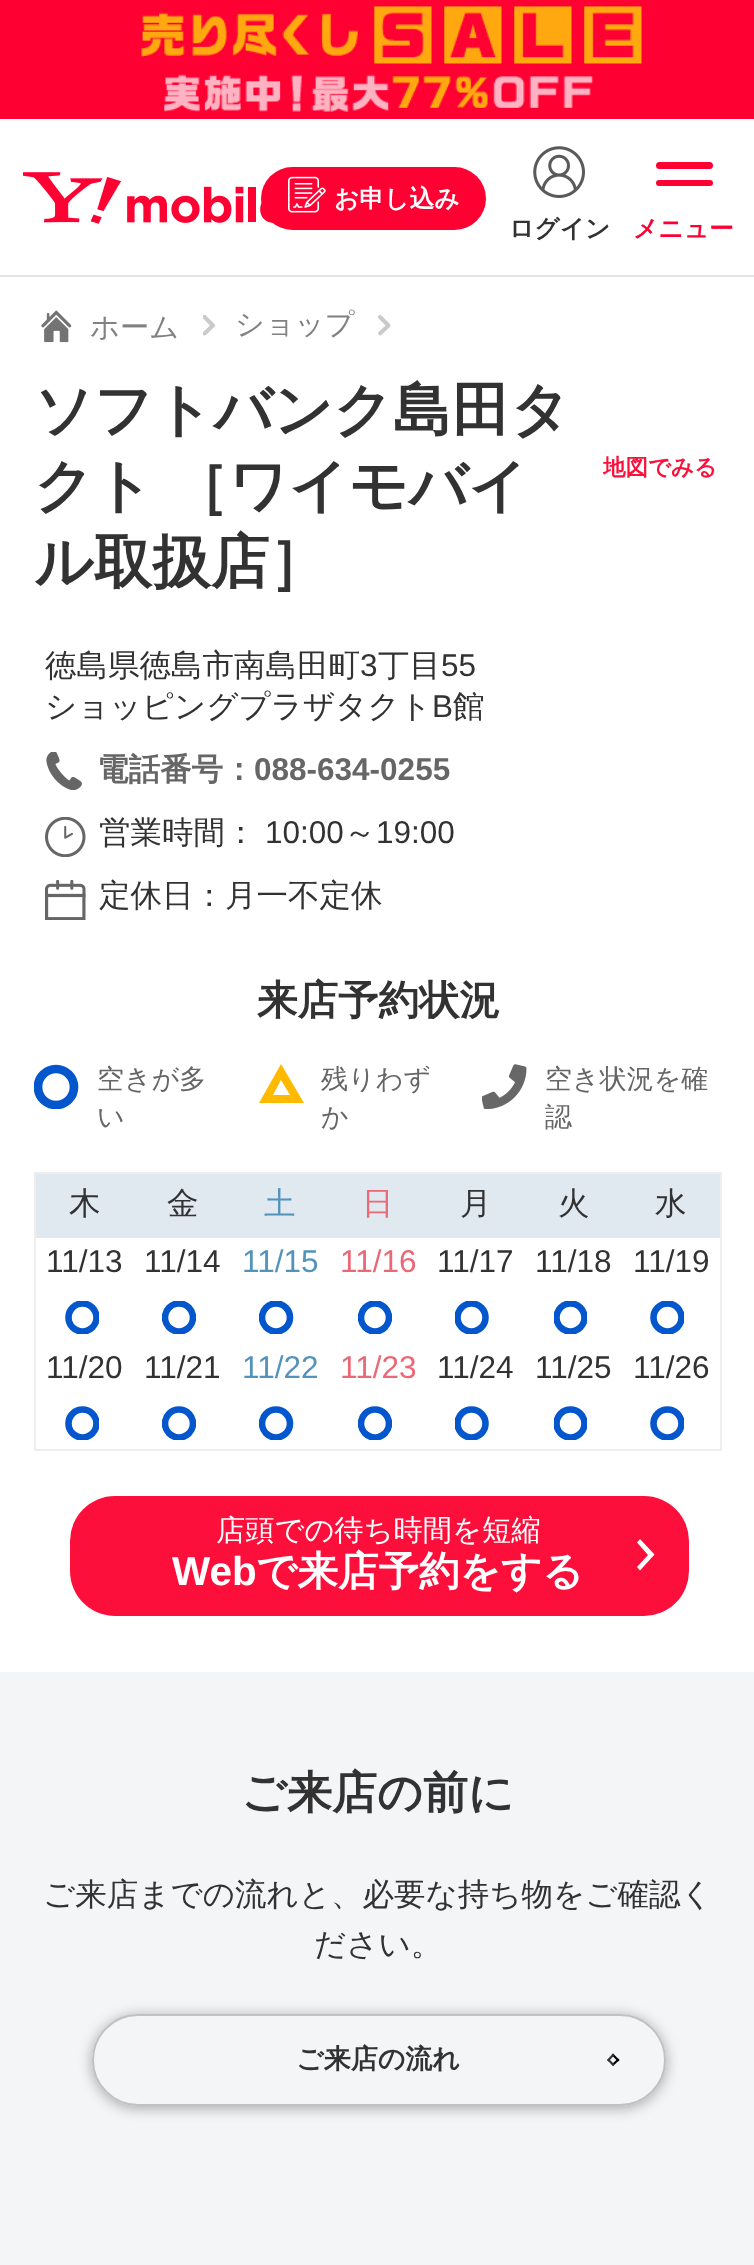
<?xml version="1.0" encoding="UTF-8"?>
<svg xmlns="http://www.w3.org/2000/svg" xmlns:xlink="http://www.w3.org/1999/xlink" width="754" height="2265">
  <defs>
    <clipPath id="clip1"><rect x="203" y="315" width="13" height="23" /></clipPath>
    <clipPath id="clip2"><rect x="34" y="1064" width="45" height="45" /></clipPath>
    <clipPath id="clip3"><rect x="65" y="1301" width="34" height="33" /></clipPath>
    <clipPath id="clip4"><rect x="162" y="1301" width="34" height="33" /></clipPath>
    <clipPath id="clip5"><rect x="259" y="1301" width="36" height="33" /></clipPath>
    <clipPath id="clip6"><rect x="358" y="1301" width="34" height="33" /></clipPath>
    <clipPath id="clip7"><rect x="455" y="1301" width="36" height="33" /></clipPath>
    <clipPath id="clip8"><rect x="554" y="1301" width="33" height="33" /></clipPath>
    <clipPath id="clip9"><rect x="650" y="1301" width="34" height="33" /></clipPath>
    <clipPath id="clip10"><rect x="65" y="1406" width="34" height="34" /></clipPath>
    <clipPath id="clip11"><rect x="162" y="1406" width="34" height="34" /></clipPath>
    <clipPath id="clip12"><rect x="259" y="1406" width="36" height="34" /></clipPath>
    <clipPath id="clip13"><rect x="358" y="1406" width="34" height="34" /></clipPath>
    <clipPath id="clip14"><rect x="455" y="1406" width="36" height="34" /></clipPath>
    <clipPath id="clip15"><rect x="554" y="1406" width="33" height="34" /></clipPath>
    <clipPath id="clip16"><rect x="650" y="1406" width="34" height="34" /></clipPath>
    <clipPath id="clip17"><path d="M 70 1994 h 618 v 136 h -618 z m 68 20 h 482 c 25.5 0 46 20.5 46 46 c 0 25.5 -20.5 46 -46 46 h -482 c -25.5 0 -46 -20.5 -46 -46 c 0 -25.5 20.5 -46 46 -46 z" clip-rule="evenodd" /></clipPath>
  </defs>
  <rect width="100%" height="100%" fill="#ffffff" />
  <rect width="754" height="119" fill="#ff0033" />
  <image x="141" y="6" width="501" height="106" xlink:href="image1.png" />
  <rect y="275" width="754" height="2" fill="#e5e5e5" />
  <image x="23" y="172" width="250" height="52" xlink:href="image2.png" />
  <rect x="261" y="167" width="225" height="63" rx="31.5" fill="#ff0033" />
  <image x="288" y="176" width="38" height="37" xlink:href="image3.png" />
  <image x="533" y="146" width="52" height="52" xlink:href="image4.png" />
  <rect x="656" y="162" width="57" height="7" rx="3.5" fill="#ff0033" />
  <rect x="656" y="180" width="57" height="6" rx="3" fill="#ff0033" />
  <image x="41" y="310" width="31" height="33" xlink:href="image5.png" />
  <g clip-path="url(#clip1)">
    <path d="M 204.5 317 l 8.5 8.5 l -8.5 8" fill="none" stroke="#cacaca" stroke-width="4" stroke-linecap="round" stroke-linejoin="round" />
  </g>
  <path d="M 380 317 l 8.5 8.5 l -8.5 8" fill="none" stroke="#cacaca" stroke-width="4" stroke-linecap="round" stroke-linejoin="round" />
  <image x="46" y="752" width="36" height="38" xlink:href="image6.png" />
  <image x="45" y="817" width="41" height="40" xlink:href="image7.png" />
  <image x="45" y="880" width="41" height="40" xlink:href="image8.png" />
  <g clip-path="url(#clip2)">
    <circle cx="56" cy="1087" r="18" fill="none" stroke="#0456cd" stroke-width="8.7" />
  </g>
  <path d="M 281 1080 l -8 15 h 17 l -9 -15 m 0 -16 l 23 39 h -45 z" fill="#ffba00" />
  <image x="482" y="1064" width="45" height="45" xlink:href="image9.png" />
  <rect x="34" y="1172" width="688" height="2" fill="#eeeeee" />
  <rect x="720" y="1172" width="2" height="279" fill="#eeeeee" />
  <rect x="34" y="1449" width="688" height="2" fill="#eeeeee" />
  <rect x="34" y="1172" width="2" height="279" fill="#eeeeee" />
  <rect x="36" y="1174" width="684" height="64" fill="#e1e9f0" />
  <g clip-path="url(#clip3)">
    <circle cx="82.5" cy="1317.5" r="14" fill="none" stroke="#0456cd" stroke-width="6.6" />
  </g>
  <g clip-path="url(#clip4)">
    <circle cx="179" cy="1317.5" r="14" fill="none" stroke="#0456cd" stroke-width="6.6" />
  </g>
  <g clip-path="url(#clip5)">
    <circle cx="276" cy="1317.5" r="14" fill="none" stroke="#0456cd" stroke-width="6.6" />
  </g>
  <g clip-path="url(#clip6)">
    <circle cx="375" cy="1317.5" r="14" fill="none" stroke="#0456cd" stroke-width="6.6" />
  </g>
  <g clip-path="url(#clip7)">
    <circle cx="471.5" cy="1317.5" r="14" fill="none" stroke="#0456cd" stroke-width="6.6" />
  </g>
  <g clip-path="url(#clip8)">
    <circle cx="570.5" cy="1317.5" r="14" fill="none" stroke="#0456cd" stroke-width="6.6" />
  </g>
  <g clip-path="url(#clip9)">
    <circle cx="667.5" cy="1317.5" r="14" fill="none" stroke="#0456cd" stroke-width="6.6" />
  </g>
  <g clip-path="url(#clip10)">
    <circle cx="82.5" cy="1423.5" r="14" fill="none" stroke="#0456cd" stroke-width="6.6" />
  </g>
  <g clip-path="url(#clip11)">
    <circle cx="179" cy="1423.5" r="14" fill="none" stroke="#0456cd" stroke-width="6.6" />
  </g>
  <g clip-path="url(#clip12)">
    <circle cx="276" cy="1423.5" r="14" fill="none" stroke="#0456cd" stroke-width="6.6" />
  </g>
  <g clip-path="url(#clip13)">
    <circle cx="375" cy="1423.5" r="14" fill="none" stroke="#0456cd" stroke-width="6.6" />
  </g>
  <g clip-path="url(#clip14)">
    <circle cx="471.5" cy="1423.5" r="14" fill="none" stroke="#0456cd" stroke-width="6.6" />
  </g>
  <g clip-path="url(#clip15)">
    <circle cx="570.5" cy="1423.5" r="14" fill="none" stroke="#0456cd" stroke-width="6.6" />
  </g>
  <g clip-path="url(#clip16)">
    <circle cx="667.5" cy="1423.5" r="14" fill="none" stroke="#0456cd" stroke-width="6.6" />
  </g>
  <rect x="70" y="1496" width="619" height="120" rx="45" fill="#fc0f3a" />
  <path d="M 637 1567 l 11 -12 l -11 -12.5 l 3 -3.5 l 14.5 15.5 l -14.5 16 z" fill="#ffffff" />
  <rect y="1672" width="754" height="593" fill="#f4f5f7" />
  <g clip-path="url(#clip17)">
    <rect x="92" y="2016" width="574" height="92" rx="46" fill="#000000" fill-opacity="0.32" filter="blur(7px)" />
  </g>
  <rect x="93" y="2015" width="572" height="90" rx="45" fill="none" stroke="#c1c1c2" stroke-width="2" />
  <path d="M 613 2053.5 l 6.5 6.5 l -1.5 1.5 l -6.5 -6.5 z" fill="#000000" />
  <path d="M 618 2058.5 l 1.5 1.5 l -6.5 6 l -1.5 -1.5 z" fill="#000000" />
  <path d="M 608.5 2058.5 l 6 6 l -1.5 1.5 l -6 -6 z" fill="#333333" />
  <path d="M 613 2053.5 l 1.5 1.5 l -6 6.5 l -1.5 -1.5 z" fill="#333333" />
  <text x="334" y="207" style="font-family: WenQuanYi Zen Hei; font-size: 24.75px; font-weight: bold; fill: #ffffff">お申し込み</text>
  <text x="509" y="237" style="font-family: WenQuanYi Zen Hei; font-size: 24.75px; font-weight: bold; fill: #323232">ログイン</text>
  <text x="633" y="237" style="font-family: WenQuanYi Zen Hei; font-size: 24.75px; font-weight: bold; fill: #ff0033">メニュー</text>
  <text x="90" y="337" style="font-family: WenQuanYi Zen Hei; font-size: 29.25px; font-weight: 500; fill: #818181">ホーム</text>
  <text x="235" y="334" style="font-family: WenQuanYi Zen Hei; font-size: 29.25px; font-weight: 500; fill: #818181">ショップ</text>
  <text x="34" y="430" style="font-family: WenQuanYi Zen Hei; font-size: 58.5px; font-weight: bold; fill: #323232">ソフトバンク島田タ</text>
  <text x="34" y="506" word-spacing="-1" style="font-family: WenQuanYi Zen Hei; font-size: 58.5px; font-weight: bold; fill: #323232">クト ［ワイモバイ</text>
  <text x="34" y="582" style="font-family: WenQuanYi Zen Hei; font-size: 58.5px; font-weight: bold; fill: #323232">ル取扱店］</text>
  <text x="603" y="475" style="font-family: WenQuanYi Zen Hei; font-size: 22.5px; font-weight: bold; fill: #fc0f3a">地図でみる</text>
  <text x="45" y="676" style="font-family: WenQuanYi Zen Hei; font-size: 31.5px; font-weight: 500; fill: #323232">徳島県徳島市南島田町</text>
  <text x="360" y="676" style="font-family: Liberation Sans; font-size: 31.5px; fill: #323232">3</text>
  <text x="378" y="676" style="font-family: WenQuanYi Zen Hei; font-size: 31.5px; font-weight: 500; fill: #323232">丁目</text>
  <text x="441" y="676" style="font-family: Liberation Sans; font-size: 31.5px; fill: #323232">55</text>
  <text x="45" y="717" style="font-family: WenQuanYi Zen Hei; font-size: 31.5px; font-weight: 500; fill: #323232">ショッピングプラザタクト</text>
  <text x="432" y="717" style="font-family: Liberation Sans; font-size: 31.5px; fill: #323232">B</text>
  <text x="453" y="717" style="font-family: WenQuanYi Zen Hei; font-size: 31.5px; font-weight: 500; fill: #323232">館</text>
  <text x="97" y="780" style="font-family: WenQuanYi Zen Hei; font-size: 31.5px; font-weight: bold; fill: #666666">電話番号：</text>
  <text x="254" y="780" style="font-family: Liberation Sans; font-size: 31.5px; font-weight: bold; fill: #666666">088-634-0255</text>
  <text x="99" y="843" style="font-family: WenQuanYi Zen Hei; font-size: 31.5px; font-weight: 500; fill: #323232">営業時間：</text>
  <text x="265" y="843" style="font-family: Liberation Sans; font-size: 31.5px; fill: #323232">10:00</text>
  <text x="344" y="843" style="font-family: WenQuanYi Zen Hei; font-size: 31.5px; font-weight: 500; fill: #323232">～</text>
  <text x="376" y="843" style="font-family: Liberation Sans; font-size: 31.5px; fill: #323232">19:00</text>
  <text x="99" y="906" style="font-family: WenQuanYi Zen Hei; font-size: 31.5px; font-weight: 500; fill: #323232">定休日：月一不定休</text>
  <text x="257" y="1014" style="font-family: WenQuanYi Zen Hei; font-size: 40.5px; font-weight: bold; fill: #323232">来店予約状況</text>
  <text x="97" y="1088" style="font-family: WenQuanYi Zen Hei; font-size: 27px; font-weight: 500; fill: #666666">空きが多</text>
  <text x="97" y="1126" style="font-family: WenQuanYi Zen Hei; font-size: 27px; font-weight: 500; fill: #666666">い</text>
  <text x="321" y="1088" style="font-family: WenQuanYi Zen Hei; font-size: 27px; font-weight: 500; fill: #666666">残りわず</text>
  <text x="321" y="1126" style="font-family: WenQuanYi Zen Hei; font-size: 27px; font-weight: 500; fill: #666666">か</text>
  <text x="545" y="1088" style="font-family: WenQuanYi Zen Hei; font-size: 27px; font-weight: 500; fill: #666666">空き状況を確</text>
  <text x="545" y="1126" style="font-family: WenQuanYi Zen Hei; font-size: 27px; font-weight: 500; fill: #666666">認</text>
  <text x="69" y="1214" style="font-family: WenQuanYi Zen Hei; font-size: 31.5px; font-weight: 500; fill: #323232">木</text>
  <text x="167" y="1214" style="font-family: WenQuanYi Zen Hei; font-size: 31.5px; font-weight: 500; fill: #323232">金</text>
  <text x="264" y="1214" style="font-family: WenQuanYi Zen Hei; font-size: 31.5px; font-weight: 500; fill: #5293bc">土</text>
  <text x="362" y="1214" style="font-family: WenQuanYi Zen Hei; font-size: 31.5px; font-weight: 500; fill: #eb6877">日</text>
  <text x="460" y="1214" style="font-family: WenQuanYi Zen Hei; font-size: 31.5px; font-weight: 500; fill: #323232">月</text>
  <text x="558" y="1214" style="font-family: WenQuanYi Zen Hei; font-size: 31.5px; font-weight: 500; fill: #323232">火</text>
  <text x="655" y="1214" style="font-family: WenQuanYi Zen Hei; font-size: 31.5px; font-weight: 500; fill: #323232">水</text>
  <text x="46" y="1272" style="font-family: Liberation Sans; font-size: 31.5px; fill: #323232">11/13</text>
  <text x="144" y="1272" style="font-family: Liberation Sans; font-size: 31.5px; fill: #323232">11/14</text>
  <text x="242" y="1272" style="font-family: Liberation Sans; font-size: 31.5px; fill: #5293bc">11/15</text>
  <text x="340" y="1272" style="font-family: Liberation Sans; font-size: 31.5px; fill: #eb6877">11/16</text>
  <text x="437" y="1272" style="font-family: Liberation Sans; font-size: 31.5px; fill: #323232">11/17</text>
  <text x="535" y="1272" style="font-family: Liberation Sans; font-size: 31.5px; fill: #323232">11/18</text>
  <text x="633" y="1272" style="font-family: Liberation Sans; font-size: 31.5px; fill: #323232">11/19</text>
  <text x="46" y="1378" style="font-family: Liberation Sans; font-size: 31.5px; fill: #323232">11/20</text>
  <text x="144" y="1378" style="font-family: Liberation Sans; font-size: 31.5px; fill: #323232">11/21</text>
  <text x="242" y="1378" style="font-family: Liberation Sans; font-size: 31.5px; fill: #5293bc">11/22</text>
  <text x="340" y="1378" style="font-family: Liberation Sans; font-size: 31.5px; fill: #eb6877">11/23</text>
  <text x="437" y="1378" style="font-family: Liberation Sans; font-size: 31.5px; fill: #323232">11/24</text>
  <text x="535" y="1378" style="font-family: Liberation Sans; font-size: 31.5px; fill: #323232">11/25</text>
  <text x="633" y="1378" style="font-family: Liberation Sans; font-size: 31.5px; fill: #323232">11/26</text>
  <text x="216" y="1540" style="font-family: WenQuanYi Zen Hei; font-size: 29.25px; font-weight: 500; fill: #ffffff">店頭での待ち時間を短縮</text>
  <text x="172" y="1585" style="font-family: Liberation Sans; font-size: 40.5px; font-weight: bold; fill: #ffffff">Web</text>
  <text x="256" y="1585" style="font-family: WenQuanYi Zen Hei; font-size: 40.5px; font-weight: bold; fill: #ffffff">で来店予約をする</text>
  <text x="241" y="1808" style="font-family: WenQuanYi Zen Hei; font-size: 45px; font-weight: bold; fill: #323232">ご来店の前に</text>
  <text x="43" y="1905" style="font-family: WenQuanYi Zen Hei; font-size: 31.5px; font-weight: 500; fill: #323232">ご来店までの流れと、必要な持ち物をご確認く</text>
  <text x="314" y="1955" style="font-family: WenQuanYi Zen Hei; font-size: 31.5px; font-weight: 500; fill: #323232">ださい。</text>
  <text x="296" y="2068" style="font-family: WenQuanYi Zen Hei; font-size: 27px; font-weight: bold; fill: #323232">ご来店の流れ</text>
</svg>
